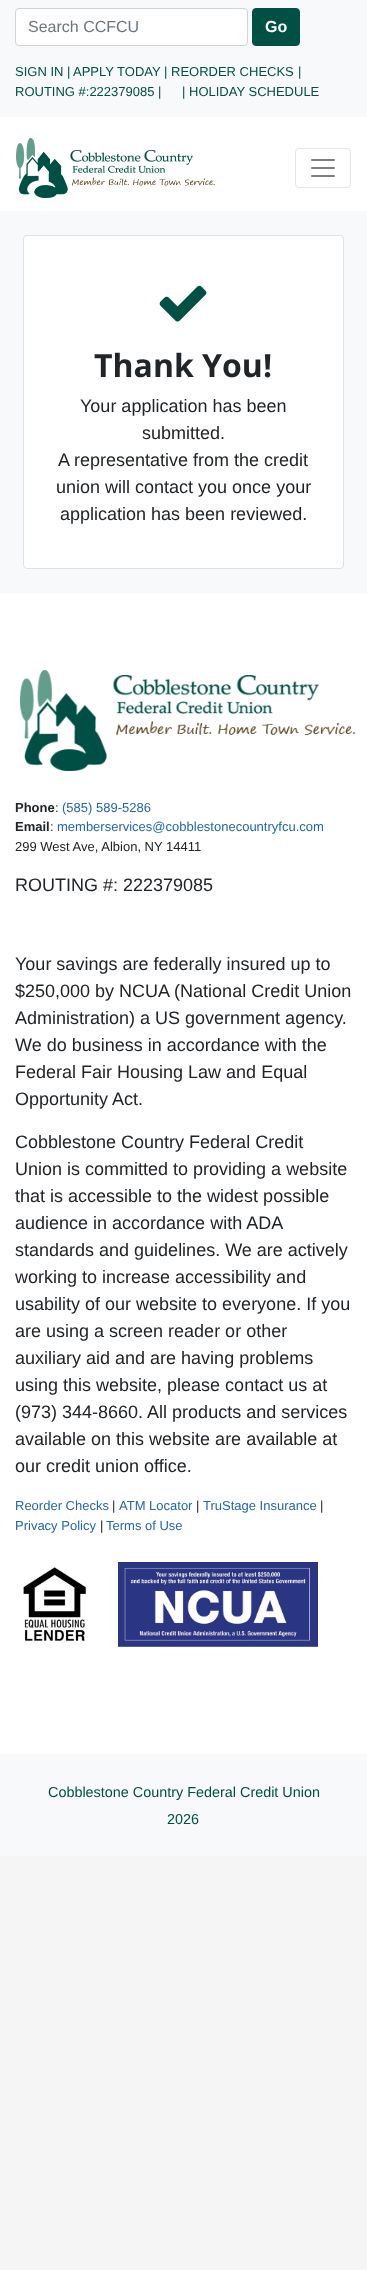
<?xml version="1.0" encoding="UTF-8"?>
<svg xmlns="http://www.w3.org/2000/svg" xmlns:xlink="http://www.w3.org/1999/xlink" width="367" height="2270">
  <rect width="100%" height="100%" fill="#f5f5f5" />
  <rect width="367" height="117" fill="#f8f9fa" />
  <rect x="15.5" y="8.5" width="232" height="37" rx="3.5" fill="#ffffff" stroke="#ced4da" />
  <rect x="252.5" y="8.5" width="47" height="37" rx="3.5" fill="#005043" stroke="#005043" />
  <rect y="117" width="367" height="94" fill="#ffffff" />
  <image x="16" y="138" width="199" height="60" xlink:href="image1.png" />
  <rect x="295.5" y="148.5" width="55" height="39" rx="3.5" fill="none" stroke="#e6e6e6" />
  <image x="311" y="159" width="24" height="18" xlink:href="image2.png" />
  <rect y="211" width="367" height="382" fill="#f8f9fa" />
  <rect x="23.5" y="235.5" width="320" height="333" rx="3.5" fill="#ffffff" stroke="#dee2e6" />
  <image x="159" y="285" width="48" height="37" xlink:href="image3.png" />
  <rect y="593" width="367" height="1161" fill="#ffffff" />
  <image x="20" y="670" width="336" height="101" xlink:href="image4.png" />
  <image x="23" y="1567" width="64" height="74" xlink:href="image5.png" />
  <image x="118" y="1562" width="200" height="85" xlink:href="image6.png" />
  <rect y="1754" width="367" height="102" fill="#f8f9fa" />
  <text x="28" y="32" style="font-family: Liberation Sans; font-size: 16px; fill: #6c757d">Search CCFCU</text>
  <text x="265" y="32" style="font-family: Liberation Sans; font-size: 16px; font-weight: bold; fill: #ffffff">Go</text>
  <text x="15" y="76" style="font-family: Liberation Sans; font-size: 13px; fill: #005043">SIGN IN</text>
  <text x="67" y="76" style="font-family: Liberation Sans; font-size: 13px; fill: #005043">|</text>
  <text x="73" y="76" style="font-family: Liberation Sans; font-size: 13px; fill: #005043">APPLY TODAY</text>
  <text x="164" y="76" style="font-family: Liberation Sans; font-size: 13px; fill: #005043">|</text>
  <text x="171" y="76" style="font-family: Liberation Sans; font-size: 13px; fill: #005043">REORDER CHECKS</text>
  <text x="298" y="76" style="font-family: Liberation Sans; font-size: 13px; fill: #005043">|</text>
  <text x="15" y="96" style="font-family: Liberation Sans; font-size: 13px; fill: #005043">ROUTING #:222379085 |</text>
  <text x="182" y="96" style="font-family: Liberation Sans; font-size: 13px; fill: #005043">|</text>
  <text x="189" y="96" style="font-family: Liberation Sans; font-size: 13px; fill: #005043">HOLIDAY SCHEDULE</text>
  <text x="94" y="377" style="font-family: Open Sans; font-size: 32px; font-weight: bold; fill: #212529">Thank You!</text>
  <text x="80" y="412" style="font-family: Liberation Sans; font-size: 18px; fill: #212529">Your application has been</text>
  <text x="142" y="439" style="font-family: Liberation Sans; font-size: 18px; fill: #212529">submitted.</text>
  <text x="58" y="466" style="font-family: Liberation Sans; font-size: 18px; fill: #212529">A representative from the credit</text>
  <text x="56" y="493" style="font-family: Liberation Sans; font-size: 18px; fill: #212529">union will contact you once your</text>
  <text x="60" y="520" style="font-family: Liberation Sans; font-size: 18px; fill: #212529">application has been reviewed.</text>
  <text x="15" y="812" style="font-family: Liberation Sans; font-size: 13px; font-weight: bold; fill: #212529">Phone</text>
  <text x="55" y="812" style="font-family: Liberation Sans; font-size: 13px; fill: #212529">:</text>
  <text x="62" y="812" style="font-family: Liberation Sans; font-size: 13px; fill: #2466ad">(585) 589-5286</text>
  <text x="15" y="831" style="font-family: Liberation Sans; font-size: 13px; font-weight: bold; fill: #212529">Email</text>
  <text x="50" y="831" style="font-family: Liberation Sans; font-size: 13px; fill: #212529">:</text>
  <text x="57" y="831" style="font-family: Liberation Sans; font-size: 13px; fill: #2466ad">memberservices@cobblestonecountryfcu.com</text>
  <text x="15" y="851" style="font-family: Liberation Sans; font-size: 13px; fill: #212529">299 West Ave, Albion, NY 14411</text>
  <text x="15" y="891" style="font-family: Liberation Sans; font-size: 18px; fill: #212529">ROUTING #: 222379085</text>
  <text x="15" y="970" style="font-family: Liberation Sans; font-size: 18px; fill: #212529">Your savings are federally insured up to</text>
  <text x="15" y="997" style="font-family: Liberation Sans; font-size: 18px; fill: #212529">$250,000 by NCUA (National Credit Union</text>
  <text x="15" y="1024" style="font-family: Liberation Sans; font-size: 18px; fill: #212529">Administration) a US government agency.</text>
  <text x="15" y="1051" style="font-family: Liberation Sans; font-size: 18px; fill: #212529">We do business in accordance with the</text>
  <text x="15" y="1078" style="font-family: Liberation Sans; font-size: 18px; fill: #212529">Federal Fair Housing Law and Equal</text>
  <text x="15" y="1105" style="font-family: Liberation Sans; font-size: 18px; fill: #212529">Opportunity Act.</text>
  <text x="15" y="1148" style="font-family: Liberation Sans; font-size: 18px; fill: #212529">Cobblestone Country Federal Credit</text>
  <text x="15" y="1175" style="font-family: Liberation Sans; font-size: 18px; fill: #212529">Union is committed to providing a website</text>
  <text x="15" y="1202" style="font-family: Liberation Sans; font-size: 18px; fill: #212529">that is accessible to the widest possible</text>
  <text x="15" y="1229" style="font-family: Liberation Sans; font-size: 18px; fill: #212529">audience in accordance with ADA</text>
  <text x="15" y="1256" style="font-family: Liberation Sans; font-size: 18px; fill: #212529">standards and guidelines. We are actively</text>
  <text x="15" y="1283" style="font-family: Liberation Sans; font-size: 18px; fill: #212529">working to increase accessibility and</text>
  <text x="15" y="1310" style="font-family: Liberation Sans; font-size: 18px; fill: #212529">usability of our website to everyone. If you</text>
  <text x="15" y="1337" style="font-family: Liberation Sans; font-size: 18px; fill: #212529">are using a screen reader or other</text>
  <text x="15" y="1364" style="font-family: Liberation Sans; font-size: 18px; fill: #212529">auxiliary aid and are having problems</text>
  <text x="15" y="1391" style="font-family: Liberation Sans; font-size: 18px; fill: #212529">using this website, please contact us at</text>
  <text x="15" y="1418" style="font-family: Liberation Sans; font-size: 18px; fill: #212529">(973) 344-8660. All products and services</text>
  <text x="15" y="1445" style="font-family: Liberation Sans; font-size: 18px; fill: #212529">available on this website are available at</text>
  <text x="15" y="1472" style="font-family: Liberation Sans; font-size: 18px; fill: #212529">our credit union office.</text>
  <text x="15" y="1510" style="font-family: Liberation Sans; font-size: 13px; fill: #2466ad">Reorder Checks</text>
  <text x="112" y="1510" style="font-family: Liberation Sans; font-size: 13px; fill: #212529">|</text>
  <text x="119" y="1510" style="font-family: Liberation Sans; font-size: 13px; fill: #2466ad">ATM Locator</text>
  <text x="196" y="1510" style="font-family: Liberation Sans; font-size: 13px; fill: #212529">|</text>
  <text x="203" y="1510" style="font-family: Liberation Sans; font-size: 13px; fill: #2466ad">TruStage Insurance</text>
  <text x="320" y="1510" style="font-family: Liberation Sans; font-size: 13px; fill: #212529">|</text>
  <text x="15" y="1530" style="font-family: Liberation Sans; font-size: 13px; fill: #2466ad">Privacy Policy</text>
  <text x="100" y="1530" style="font-family: Liberation Sans; font-size: 13px; fill: #212529">|</text>
  <text x="106" y="1530" style="font-family: Liberation Sans; font-size: 13px; fill: #2466ad">Terms of Use</text>
  <text x="48" y="1797" style="font-family: Liberation Sans; font-size: 14.4px; fill: #005043">Cobblestone Country Federal Credit Union</text>
  <text x="167" y="1824" style="font-family: Liberation Sans; font-size: 14.4px; fill: #005043">2026</text>
</svg>
